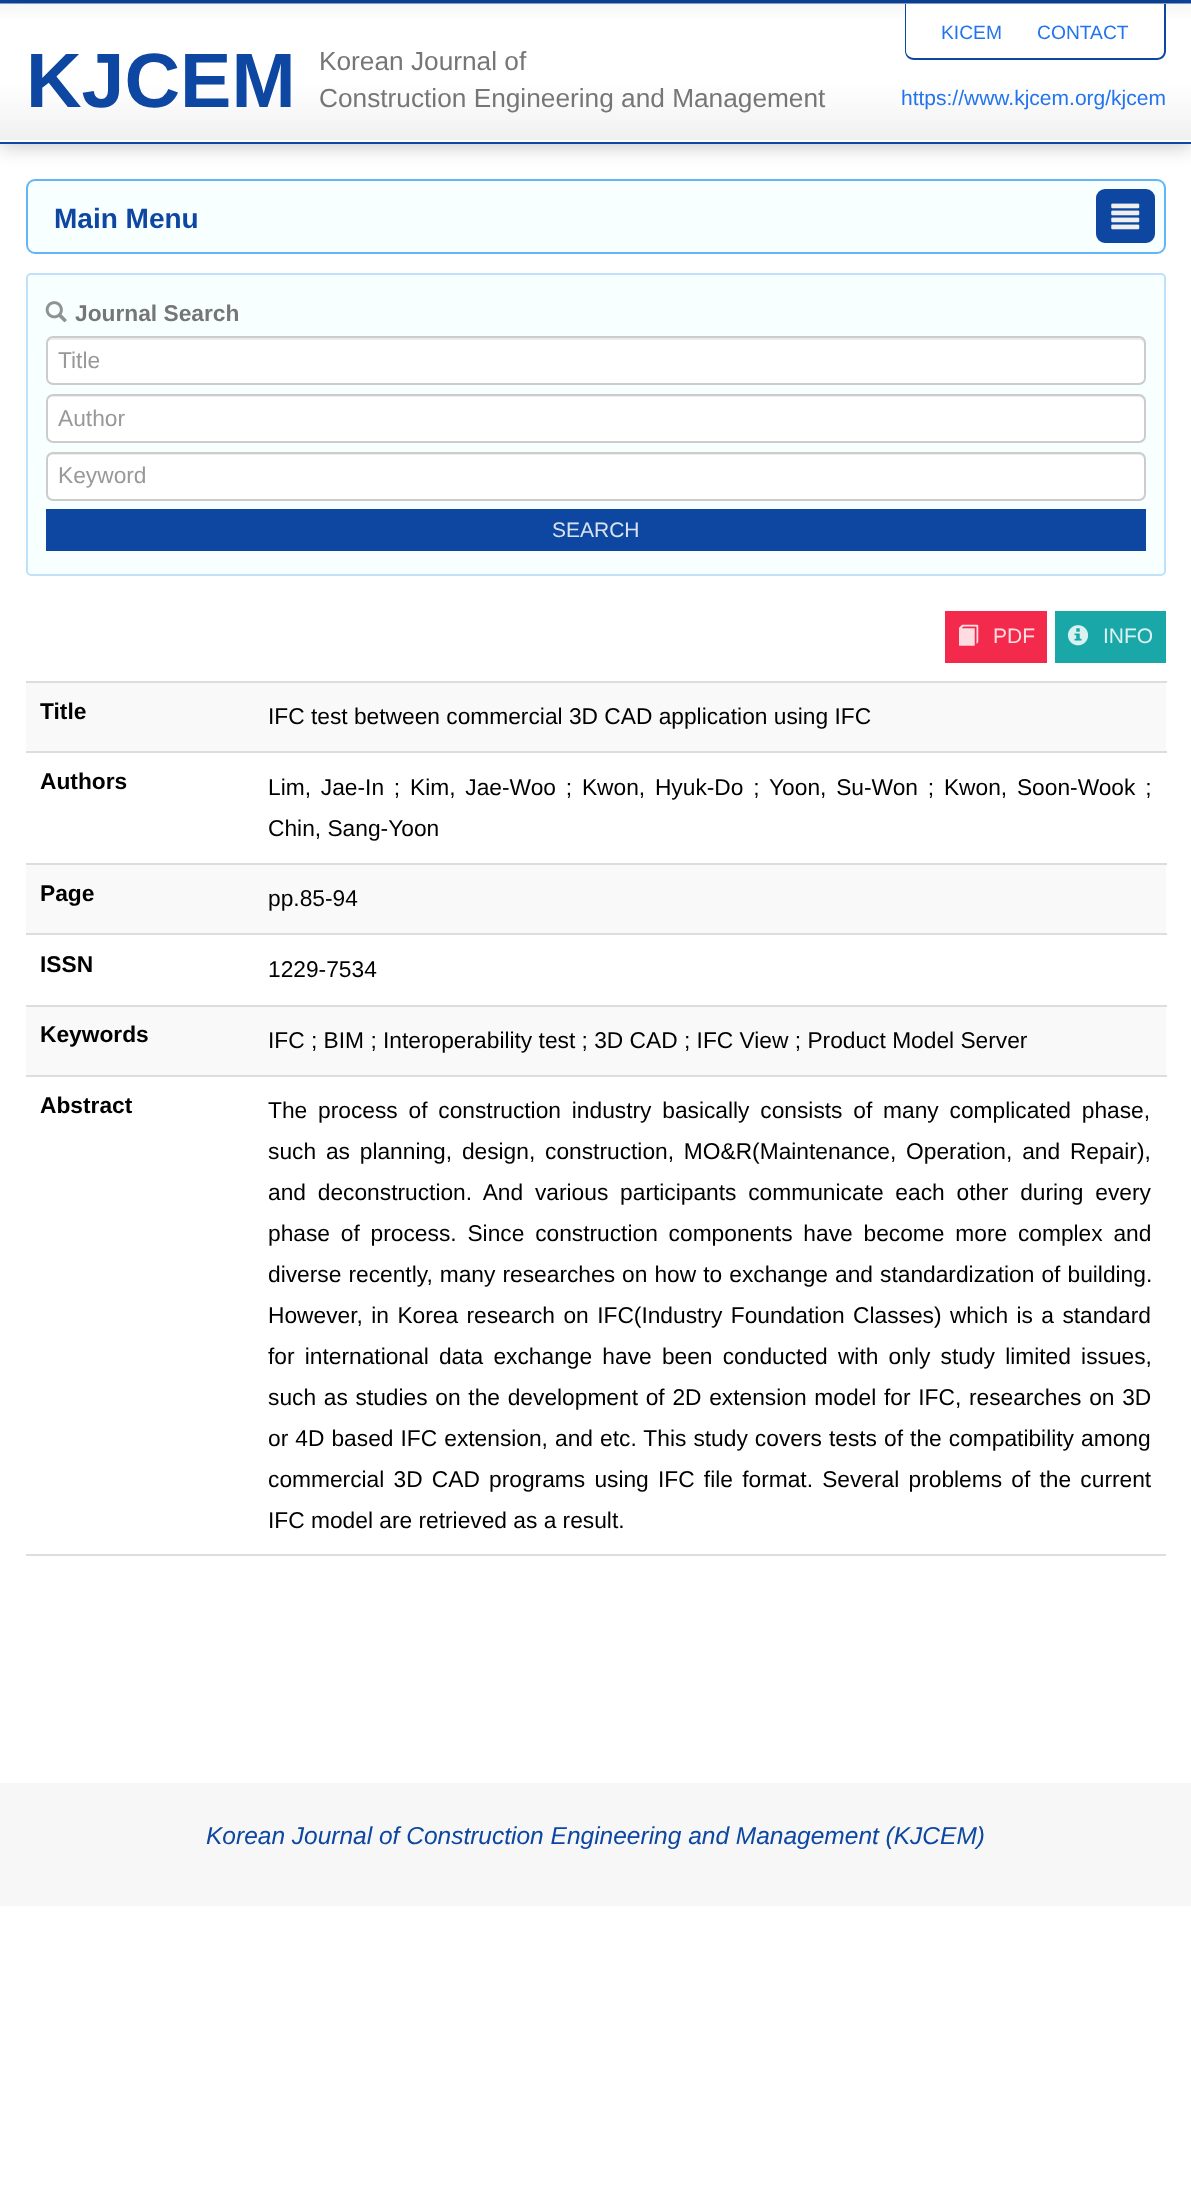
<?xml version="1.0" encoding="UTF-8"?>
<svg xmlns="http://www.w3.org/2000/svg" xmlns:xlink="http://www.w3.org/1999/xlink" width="1191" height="2210">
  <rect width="100%" height="100%" fill="#ffffff" />
  <rect width="1191" height="4" fill="#0d47a1" />
  <rect y="5" width="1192" height="140" fill="#000000" fill-opacity="0.25" filter="blur(10.5px)" />
  <image x="0" y="3" width="1191" height="137" xlink:href="image1.png" />
  <rect y="142" width="1191" height="2" fill="#0d47a1" />
  <rect y="140" width="1191" height="2" fill="#ffffff" />
  <path d="M 905 4 h 261 v 47 c 0 5 -4 9 -9 9 h -243 c -5 0 -9 -4 -9 -9 z" fill="#ffffff" />
  <path d="M 905 4 h 261 v 47 c 0 5 -4 9 -9 9 h -243 c -5 0 -9 -4 -9 -9 z m 1 0 h 258 v 47 c 0 4 -3 7 -7 7 h -243 c -4 0 -8 -3 -8 -7 z" fill="#0d47a1" fill-rule="evenodd" />
  <rect x="27" y="180" width="1138" height="73" rx="8" fill="#f8ffff" stroke="#64b5f6" stroke-width="2" />
  <rect x="1097" y="190" width="57" height="52" rx="8" fill="#0d47a1" stroke="#0d47a1" stroke-width="2" />
  <image x="1111" y="203" width="29" height="27" xlink:href="image2.png" />
  <rect x="27" y="274" width="1138" height="301" rx="4" fill="#f8ffff" stroke="#c0e1fa" stroke-width="2" />
  <image x="45" y="301" width="22" height="22" xlink:href="image3.png" />
  <rect x="46" y="336" width="1100" height="49" rx="7" fill="#ffffff" />
  <path d="M 52 340 h 1087 c 3 0 5 2 5 5 v 36 c 1 -1 1 -2 1 -3 v -35 c 0 -3 -2 -5 -5 -5 h -1088 c -3 0 -5 2 -5 5 v 2 c 0 -3 3 -5 5 -5 z" fill="#ececec" />
  <rect x="47" y="337" width="1098" height="47" rx="6" fill="none" stroke="#cccccc" stroke-width="2" />
  <rect x="46" y="394" width="1100" height="49" rx="7" fill="#ffffff" />
  <path d="M 52 397 h 1087 c 3 0 5 3 5 5 v 37 c 1 -1 1 -2 1 -3 v -35 c 0 -3 -2 -5 -5 -5 h -1088 c -3 0 -5 2 -5 5 v 1 c 0 -2 3 -5 5 -5 z" fill="#ececec" />
  <rect x="47" y="395" width="1098" height="47" rx="6" fill="none" stroke="#cccccc" stroke-width="2" />
  <rect x="46" y="452" width="1100" height="49" rx="7" fill="#ffffff" />
  <path d="M 52 455 h 1087 c 3 0 5 2 5 5 v 35 l -1 3 c 1 -1 2 -3 2 -4 v -36 c 0 -3 -2 -5 -5 -5 h -1088 c -3 0 -5 2 -5 5 v 2 c 0 -3 3 -5 5 -5 z" fill="#ececec" />
  <rect x="47" y="453" width="1098" height="47" rx="6" fill="none" stroke="#cccccc" stroke-width="2" />
  <rect x="46" y="509" width="1100" height="42" fill="#0d47a1" />
  <rect x="945" y="611" width="102" height="52" fill="#f32a4c" />
  <image x="959" y="624" width="20" height="22" xlink:href="image4.png" />
  <rect x="1055" y="611" width="111" height="52" fill="#1aa7a8" />
  <image x="1067" y="625" width="22" height="21" xlink:href="image5.png" />
  <rect x="26" y="1554" width="1140" height="2" fill="#dddddd" />
  <rect x="26" y="683" width="1140" height="68" fill="#f9f9f9" />
  <rect x="26" y="681" width="1141" height="2" fill="#dddddd" />
  <rect x="26" y="751" width="1141" height="2" fill="#dddddd" />
  <rect x="26" y="865" width="1140" height="68" fill="#f9f9f9" />
  <rect x="26" y="863" width="1141" height="2" fill="#dddddd" />
  <rect x="26" y="933" width="1141" height="2" fill="#dddddd" />
  <rect x="26" y="1007" width="1140" height="68" fill="#f9f9f9" />
  <rect x="26" y="1005" width="1141" height="2" fill="#dddddd" />
  <rect x="26" y="1075" width="1141" height="2" fill="#dddddd" />
  <rect y="1783" width="1191" height="123" fill="#f7f7f7" />
  <text x="941" y="39" style="font-family: Liberation Sans; font-size: 19.25px; fill: #2374ed">KICEM</text>
  <text x="1037" y="39" style="font-family: Liberation Sans; font-size: 19.25px; fill: #2374ed">CONTACT</text>
  <text x="26" y="107" style="font-family: Liberation Sans; font-size: 77px; font-weight: bold; fill: #0d47a1">KJCEM</text>
  <text x="319" y="70" style="font-family: Liberation Sans; font-size: 26.25px; fill: #767676">Korean Journal of</text>
  <text x="319" y="107" style="font-family: Liberation Sans; font-size: 26.25px; fill: #767676">Construction Engineering and Management</text>
  <text x="901" y="105" style="font-family: Liberation Sans; font-size: 21px; fill: #2374ed">https://www.kjcem.org/kjcem</text>
  <text x="54" y="228" style="font-family: Liberation Sans; font-size: 28px; font-weight: bold; fill: #0d47a1">Main Menu</text>
  <text x="75" y="321" style="font-family: Liberation Sans; font-size: 22.75px; font-weight: bold; fill: #767676">Journal Search</text>
  <text x="58" y="368" style="font-family: Liberation Sans; font-size: 22.75px; fill: #999999">Title</text>
  <text x="58" y="426" style="font-family: Liberation Sans; font-size: 22.75px; fill: #999999">Author</text>
  <text x="58" y="483" style="font-family: Liberation Sans; font-size: 22.75px; fill: #999999">Keyword</text>
  <text x="552" y="537" style="font-family: Liberation Sans; font-size: 21px; fill: #d8e2f0">SEARCH</text>
  <text x="993" y="643" style="font-family: Liberation Sans; font-size: 21px; fill: #fddde2">PDF</text>
  <text x="1103" y="643" style="font-family: Liberation Sans; font-size: 21px; fill: #daf1f1">INFO</text>
  <text x="40" y="719" style="font-family: Liberation Sans; font-size: 22.75px; font-weight: bold; fill: #000000">Title</text>
  <text x="268" y="724" style="font-family: Liberation Sans; font-size: 22.75px; fill: #000000">IFC test between commercial 3D CAD application using IFC</text>
  <text x="40" y="789" style="font-family: Liberation Sans; font-size: 22.75px; font-weight: bold; fill: #000000">Authors</text>
  <text x="268" y="795" word-spacing="3.5" style="font-family: Liberation Sans; font-size: 22.75px; fill: #000000">Lim, Jae-In ; Kim, Jae-Woo ; Kwon, Hyuk-Do ; Yoon, Su-Won ; Kwon, Soon-Wook ;</text>
  <text x="268" y="836" style="font-family: Liberation Sans; font-size: 22.75px; fill: #000000">Chin, Sang-Yoon</text>
  <text x="40" y="901" style="font-family: Liberation Sans; font-size: 22.75px; font-weight: bold; fill: #000000">Page</text>
  <text x="268" y="906" style="font-family: Liberation Sans; font-size: 22.75px; fill: #000000">pp.85-94</text>
  <text x="40" y="972" style="font-family: Liberation Sans; font-size: 22.75px; font-weight: bold; fill: #000000">ISSN</text>
  <text x="268" y="977" style="font-family: Liberation Sans; font-size: 22.75px; fill: #000000">1229-7534</text>
  <text x="40" y="1042" style="font-family: Liberation Sans; font-size: 22.75px; font-weight: bold; fill: #000000">Keywords</text>
  <text x="268" y="1048" style="font-family: Liberation Sans; font-size: 22.75px; fill: #000000">IFC ; BIM ; Interoperability test ; 3D CAD ; IFC View ; Product Model Server</text>
  <text x="40" y="1113" style="font-family: Liberation Sans; font-size: 22.75px; font-weight: bold; fill: #000000">Abstract</text>
  <text x="268" y="1118" word-spacing="4.5" style="font-family: Liberation Sans; font-size: 22.75px; fill: #000000">The process of construction industry basically consists of many complicated phase,</text>
  <text x="268" y="1159" word-spacing="3.5" style="font-family: Liberation Sans; font-size: 22.75px; fill: #000000">such as planning, design, construction, MO&amp;R(Maintenance, Operation, and Repair),</text>
  <text x="268" y="1200" word-spacing="5.5" style="font-family: Liberation Sans; font-size: 22.75px; fill: #000000">and deconstruction. And various participants communicate each other during every</text>
  <text x="268" y="1241" word-spacing="4.5" style="font-family: Liberation Sans; font-size: 22.75px; fill: #000000">phase of process. Since construction components have become more complex and</text>
  <text x="268" y="1282" word-spacing="0.75" style="font-family: Liberation Sans; font-size: 22.75px; fill: #000000">diverse recently, many researches on how to exchange and standardization of building.</text>
  <text x="268" y="1323" word-spacing="2.1" style="font-family: Liberation Sans; font-size: 22.75px; fill: #000000">However, in Korea research on IFC(Industry Foundation Classes) which is a standard</text>
  <text x="268" y="1364" word-spacing="3.9" style="font-family: Liberation Sans; font-size: 22.75px; fill: #000000">for international data exchange have been conducted with only study limited issues,</text>
  <text x="268" y="1405" word-spacing="1.4" style="font-family: Liberation Sans; font-size: 22.75px; fill: #000000">such as studies on the development of 2D extension model for IFC, researches on 3D</text>
  <text x="268" y="1446" word-spacing="0.75" style="font-family: Liberation Sans; font-size: 22.75px; fill: #000000">or 4D based IFC extension, and etc. This study covers tests of the compatibility among</text>
  <text x="268" y="1487" word-spacing="2.9" style="font-family: Liberation Sans; font-size: 22.75px; fill: #000000">commercial 3D CAD programs using IFC file format. Several problems of the current</text>
  <text x="268" y="1528" style="font-family: Liberation Sans; font-size: 22.75px; fill: #000000">IFC model are retrieved as a result.</text>
  <text x="206" y="1844" style="font-family: Liberation Sans; font-size: 24.5px; font-style: italic; fill: #0d47a1">Korean Journal of Construction Engineering and Management (KJCEM)</text>
</svg>
